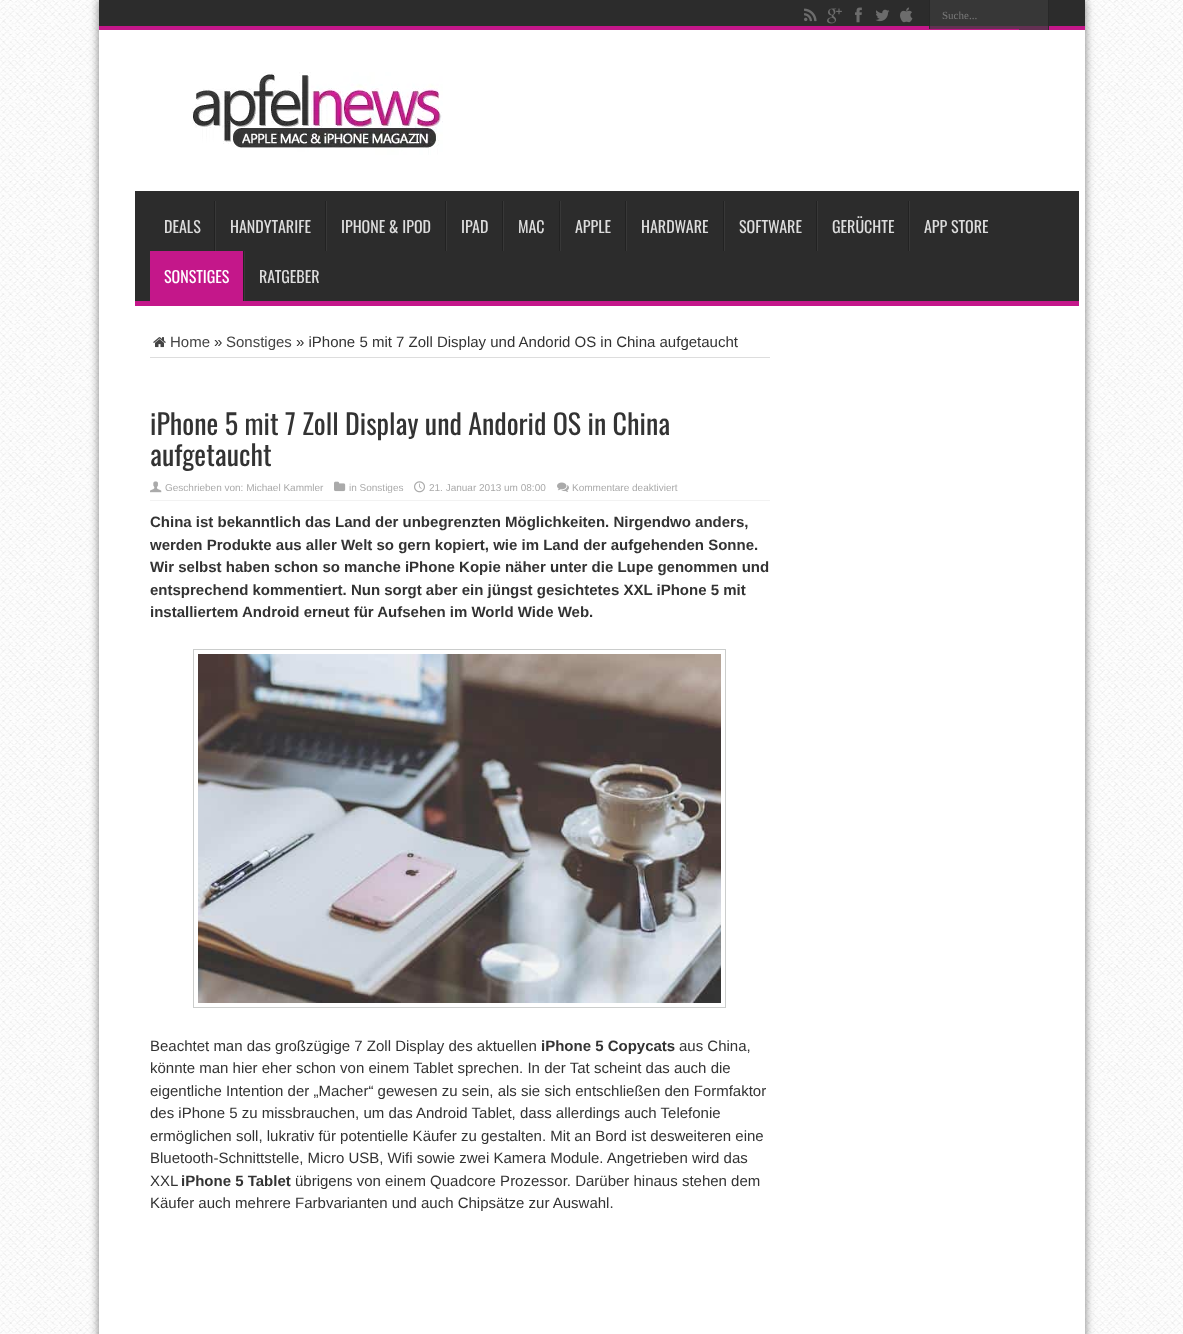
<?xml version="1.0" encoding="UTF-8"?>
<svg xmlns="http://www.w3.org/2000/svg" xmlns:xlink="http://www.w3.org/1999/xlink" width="1183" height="1334">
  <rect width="100%" height="100%" fill="#ffffff" />
  <image x="0" y="0" width="1183" height="1334" xlink:href="image1.png" />
  <rect x="99" width="986" height="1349" fill="#000000" fill-opacity="0.5" filter="blur(5px)" />
  <rect x="99" y="30" width="986" height="1304" fill="#ffffff" />
  <rect x="99" width="986" height="26" fill="#2c2c2c" />
  <rect x="99" y="26" width="986" height="4" fill="#c4178a" />
  <image x="804" y="8" width="13" height="14" xlink:href="image2.png" />
  <image x="827" y="8" width="15" height="16" xlink:href="image3.png" />
  <image x="855" y="7" width="7" height="16" xlink:href="image4.png" />
  <image x="875" y="9" width="15" height="13" xlink:href="image5.png" />
  <image x="900" y="7" width="13" height="16" xlink:href="image6.png" />
  <rect x="929" y="29" width="90" height="1" fill="#c01787" />
  <rect x="929" width="90" height="29" fill="#3c3c3c" fill-opacity="0.7" />
  <rect x="929" width="1" height="29" fill="#222222" fill-opacity="0.7" />
  <rect x="1019" width="30" height="30" fill="#3c3c3c" fill-opacity="0.7" />
  <rect x="1048" width="1" height="30" fill="#222222" fill-opacity="0.7" />
  <image x="192" y="72" width="251" height="83" xlink:href="image7.png" />
  <rect x="135" y="191" width="944" height="110" fill="#2c2c2c" />
  <rect x="135" y="301" width="944" height="5" fill="#c4178a" />
  <rect x="214" y="201" width="1" height="50" fill="#222222" />
  <rect x="215" y="201" width="1" height="50" fill="#383838" />
  <rect x="325" y="201" width="1" height="50" fill="#222222" />
  <rect x="326" y="201" width="1" height="50" fill="#383838" />
  <rect x="445" y="201" width="1" height="50" fill="#222222" />
  <rect x="446" y="201" width="1" height="50" fill="#383838" />
  <rect x="502" y="201" width="1" height="50" fill="#222222" />
  <rect x="503" y="201" width="1" height="50" fill="#383838" />
  <rect x="559" y="201" width="1" height="50" fill="#222222" />
  <rect x="560" y="201" width="1" height="50" fill="#383838" />
  <rect x="625" y="201" width="1" height="50" fill="#222222" />
  <rect x="626" y="201" width="1" height="50" fill="#383838" />
  <rect x="723" y="201" width="1" height="50" fill="#222222" />
  <rect x="724" y="201" width="1" height="50" fill="#383838" />
  <rect x="816" y="201" width="1" height="50" fill="#222222" />
  <rect x="817" y="201" width="1" height="50" fill="#383838" />
  <rect x="908" y="201" width="1" height="50" fill="#222222" />
  <rect x="909" y="201" width="1" height="50" fill="#383838" />
  <rect x="150" y="251" width="93" height="50" fill="#c4178a" />
  <rect x="243" y="251" width="1" height="50" fill="#222222" />
  <rect x="244" y="251" width="1" height="50" fill="#383838" />
  <rect x="150" y="357" width="620" height="1" fill="#dddddd" />
  <image x="153" y="337" width="13" height="11" xlink:href="image8.png" />
  <rect x="150" y="500" width="620" height="1" fill="#f2f2f2" />
  <image x="150" y="481" width="12" height="12" xlink:href="image9.png" />
  <image x="334" y="481" width="12" height="11" xlink:href="image10.png" />
  <image x="414" y="481" width="11" height="12" xlink:href="image11.png" />
  <image x="557" y="482" width="12" height="10" xlink:href="image12.png" />
  <rect x="193.5" y="649.5" width="532" height="358" fill="none" stroke="#cbcdcc" />
  <image x="198" y="654" width="523" height="349" xlink:href="image13.png" />
  <text x="942" y="19" style="font-family: Liberation Serif; font-size: 11px; fill: #787878">Suche...</text>
  <text x="164" y="233" style="font-family: Oswald; font-size: 16px; fill: #dddddd">DEALS</text>
  <text x="230" y="233" style="font-family: Oswald; font-size: 16px; fill: #dddddd">HANDYTARIFE</text>
  <text x="341" y="233" style="font-family: Oswald; font-size: 16px; fill: #dddddd">IPHONE &amp; IPOD</text>
  <text x="461" y="233" style="font-family: Oswald; font-size: 16px; fill: #dddddd">IPAD</text>
  <text x="518" y="233" style="font-family: Oswald; font-size: 16px; fill: #dddddd">MAC</text>
  <text x="575" y="233" style="font-family: Oswald; font-size: 16px; fill: #dddddd">APPLE</text>
  <text x="641" y="233" style="font-family: Oswald; font-size: 16px; fill: #dddddd">HARDWARE</text>
  <text x="739" y="233" style="font-family: Oswald; font-size: 16px; fill: #dddddd">SOFTWARE</text>
  <text x="832" y="233" style="font-family: Oswald; font-size: 16px; fill: #dddddd">GERÜCHTE</text>
  <text x="924" y="233" style="font-family: Oswald; font-size: 16px; fill: #dddddd">APP STORE</text>
  <text x="164" y="283" style="font-family: Oswald; font-size: 16px; fill: #ffffff">SONSTIGES</text>
  <text x="259" y="283" style="font-family: Oswald; font-size: 16px; fill: #dddddd">RATGEBER</text>
  <text x="170" y="347" style="font-family: Liberation Sans; font-size: 15px; fill: #444444">Home</text>
  <text x="214" y="347" style="font-family: Liberation Sans; font-size: 15px; fill: #333333">»</text>
  <text x="226" y="347" style="font-family: Liberation Sans; font-size: 15px; fill: #444444">Sonstiges</text>
  <text x="296" y="347" style="font-family: Liberation Sans; font-size: 15px; fill: #333333">» iPhone 5 mit 7 Zoll Display und Andorid OS in China aufgetaucht</text>
  <text x="150" y="435" style="font-family: Oswald; font-size: 28px; fill: #333333">iPhone 5 mit 7 Zoll Display und Andorid OS in China</text>
  <text x="150" y="466" style="font-family: Oswald; font-size: 28px; fill: #333333">aufgetaucht</text>
  <text x="165" y="491" style="font-family: Liberation Sans; font-size: 10px; fill: #aaaaaa">Geschrieben von: Michael Kammler</text>
  <text x="349" y="491" style="font-family: Liberation Sans; font-size: 10px; fill: #aaaaaa">in Sonstiges</text>
  <text x="429" y="491" style="font-family: Liberation Sans; font-size: 10px; fill: #aaaaaa">21. Januar 2013 um 08:00</text>
  <text x="572" y="491" style="font-family: Liberation Sans; font-size: 10px; fill: #aaaaaa">Kommentare deaktiviert</text>
  <text x="150" y="527" style="font-family: Liberation Sans; font-size: 15px; font-weight: bold; fill: #333333">China ist bekanntlich das Land der unbegrenzten Möglichkeiten. Nirgendwo anders,</text>
  <text x="150" y="550" style="font-family: Liberation Sans; font-size: 15px; font-weight: bold; fill: #333333">werden Produkte aus aller Welt so gern kopiert, wie im Land der aufgehenden Sonne.</text>
  <text x="150" y="572" style="font-family: Liberation Sans; font-size: 15px; font-weight: bold; fill: #333333">Wir selbst haben schon so manche iPhone Kopie näher unter die Lupe genommen und</text>
  <text x="150" y="595" style="font-family: Liberation Sans; font-size: 15px; font-weight: bold; fill: #333333">entsprechend kommentiert. Nun sorgt aber ein jüngst gesichtetes XXL iPhone 5 mit</text>
  <text x="150" y="617" style="font-family: Liberation Sans; font-size: 15px; font-weight: bold; fill: #333333">installiertem Android erneut für Aufsehen im World Wide Web.</text>
  <text x="150" y="1051" style="font-family: Liberation Sans; font-size: 15px; fill: #333333">Beachtet man das großzügige 7 Zoll Display des aktuellen</text>
  <text x="541" y="1051" style="font-family: Liberation Sans; font-size: 15px; font-weight: bold; fill: #333333">iPhone 5 Copycats</text>
  <text x="679" y="1051" style="font-family: Liberation Sans; font-size: 15px; fill: #333333">aus China,</text>
  <text x="150" y="1073" style="font-family: Liberation Sans; font-size: 15px; fill: #333333">könnte man hier eher schon von einem Tablet sprechen. In der Tat scheint das auch die</text>
  <text x="150" y="1096" style="font-family: Liberation Sans; font-size: 15px; fill: #333333">eigentliche Intention der „Macher“ gewesen zu sein, als sie sich entschließen den Formfaktor</text>
  <text x="150" y="1118" style="font-family: Liberation Sans; font-size: 15px; fill: #333333">des iPhone 5 zu missbrauchen, um das Android Tablet, dass allerdings auch Telefonie</text>
  <text x="150" y="1141" style="font-family: Liberation Sans; font-size: 15px; fill: #333333">ermöglichen soll, lukrativ für potentielle Käufer zu gestalten. Mit an Bord ist desweiteren eine</text>
  <text x="150" y="1163" style="font-family: Liberation Sans; font-size: 15px; fill: #333333">Bluetooth-Schnittstelle, Micro USB, Wifi sowie zwei Kamera Module. Angetrieben wird das</text>
  <text x="150" y="1186" style="font-family: Liberation Sans; font-size: 15px; fill: #333333">XXL</text>
  <text x="181" y="1186" style="font-family: Liberation Sans; font-size: 15px; font-weight: bold; fill: #333333">iPhone 5 Tablet</text>
  <text x="295" y="1186" style="font-family: Liberation Sans; font-size: 15px; fill: #333333">übrigens von einem Quadcore Prozessor. Darüber hinaus stehen dem</text>
  <text x="150" y="1208" style="font-family: Liberation Sans; font-size: 15px; fill: #333333">Käufer auch mehrere Farbvarianten und auch Chipsätze zur Auswahl.</text>
</svg>
